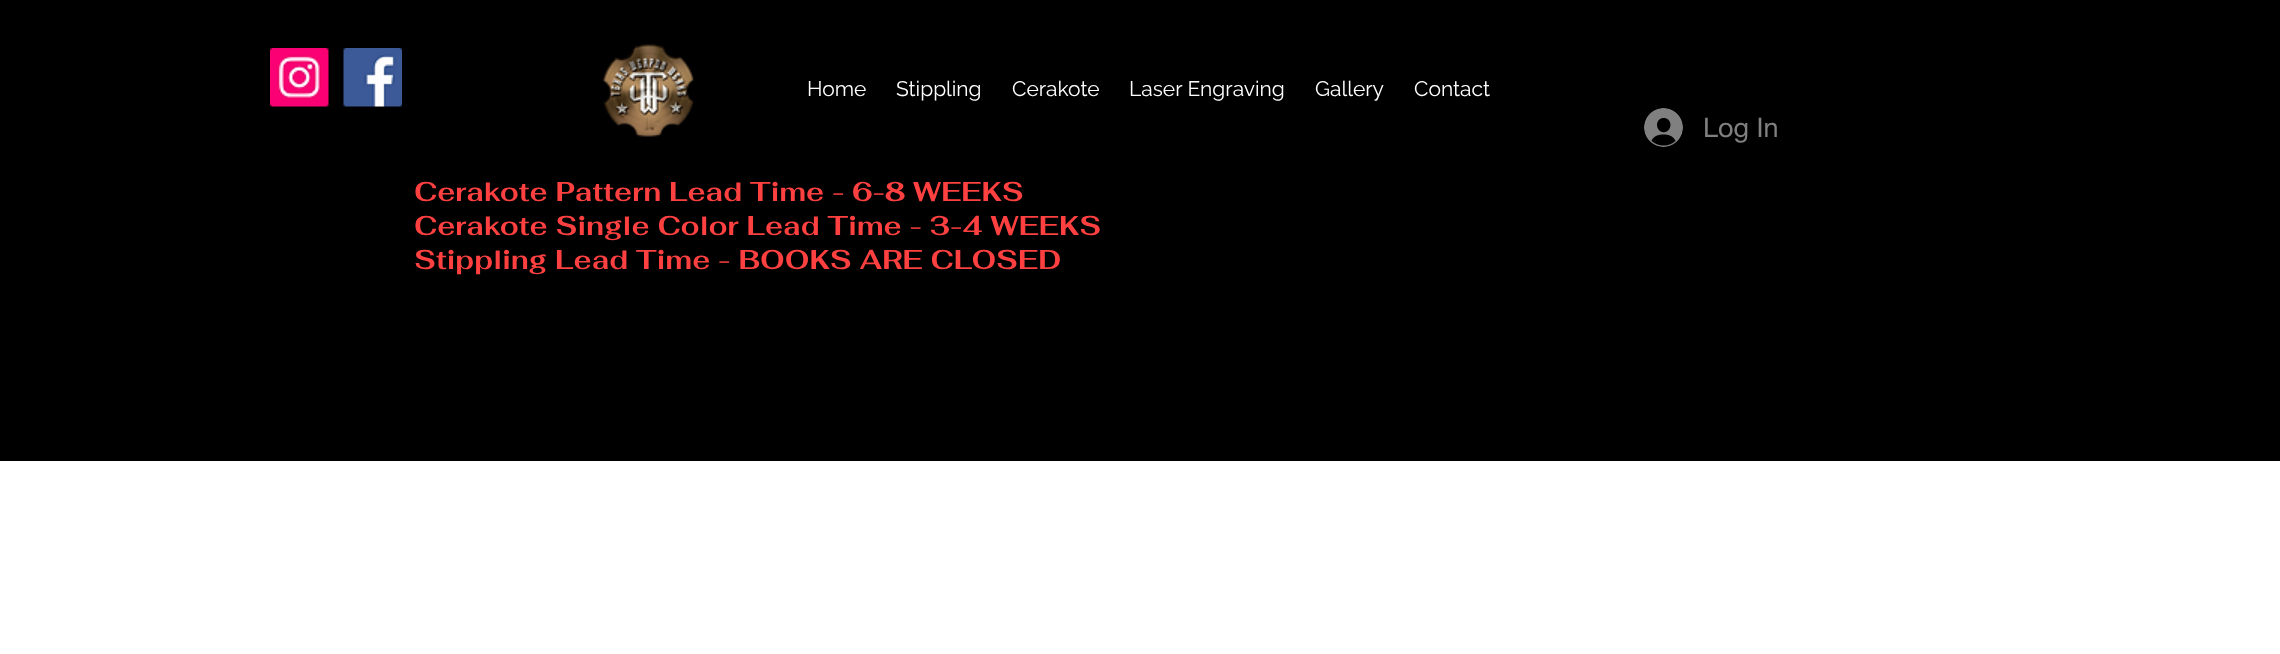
<?xml version="1.0" encoding="UTF-8"?>
<svg xmlns="http://www.w3.org/2000/svg" xmlns:xlink="http://www.w3.org/1999/xlink" width="2280" height="654">
  <rect width="100%" height="100%" fill="#ffffff" />
  <rect width="2280" height="461" fill="#000000" />
  <image x="270" y="48" width="59" height="59" xlink:href="image1.png" />
  <image x="343" y="48" width="59" height="59" xlink:href="image2.png" />
  <image x="602" y="43" width="92" height="94" xlink:href="image3.png" />
  <image x="1644" y="108" width="39" height="39" xlink:href="image4.png" />
  <text x="807" y="96" style="font-family: Raleway; font-size: 21px; fill: #ffffff">Home</text>
  <text x="896" y="96" style="font-family: Raleway; font-size: 21px; fill: #ffffff">Stippling</text>
  <text x="1012" y="96" style="font-family: Raleway; font-size: 21px; fill: #ffffff">Cerakote</text>
  <text x="1129" y="96" style="font-family: Raleway; font-size: 21px; fill: #ffffff">Laser Engraving</text>
  <text x="1315" y="96" style="font-family: Raleway; font-size: 21px; fill: #ffffff">Gallery</text>
  <text x="1414" y="96" style="font-family: Raleway; font-size: 21px; fill: #ffffff">Contact</text>
  <text x="1703" y="137" style="font-family: helvetica neue; font-size: 27px; fill: #808080">Log In</text>
  <text x="414" y="201" style="font-family: Fahkwang; font-size: 27px; font-weight: bold; fill: #ff4040">Cerakote Pattern Lead Time - 6-8 WEEKS</text>
  <text x="414" y="235" style="font-family: Fahkwang; font-size: 27px; font-weight: bold; fill: #ff4040">Cerakote Single Color Lead Time - 3-4 WEEKS</text>
  <text x="414" y="269" style="font-family: Fahkwang; font-size: 27px; font-weight: bold; fill: #ff4040">Stippling Lead Time - BOOKS ARE CLOSED</text>
</svg>
